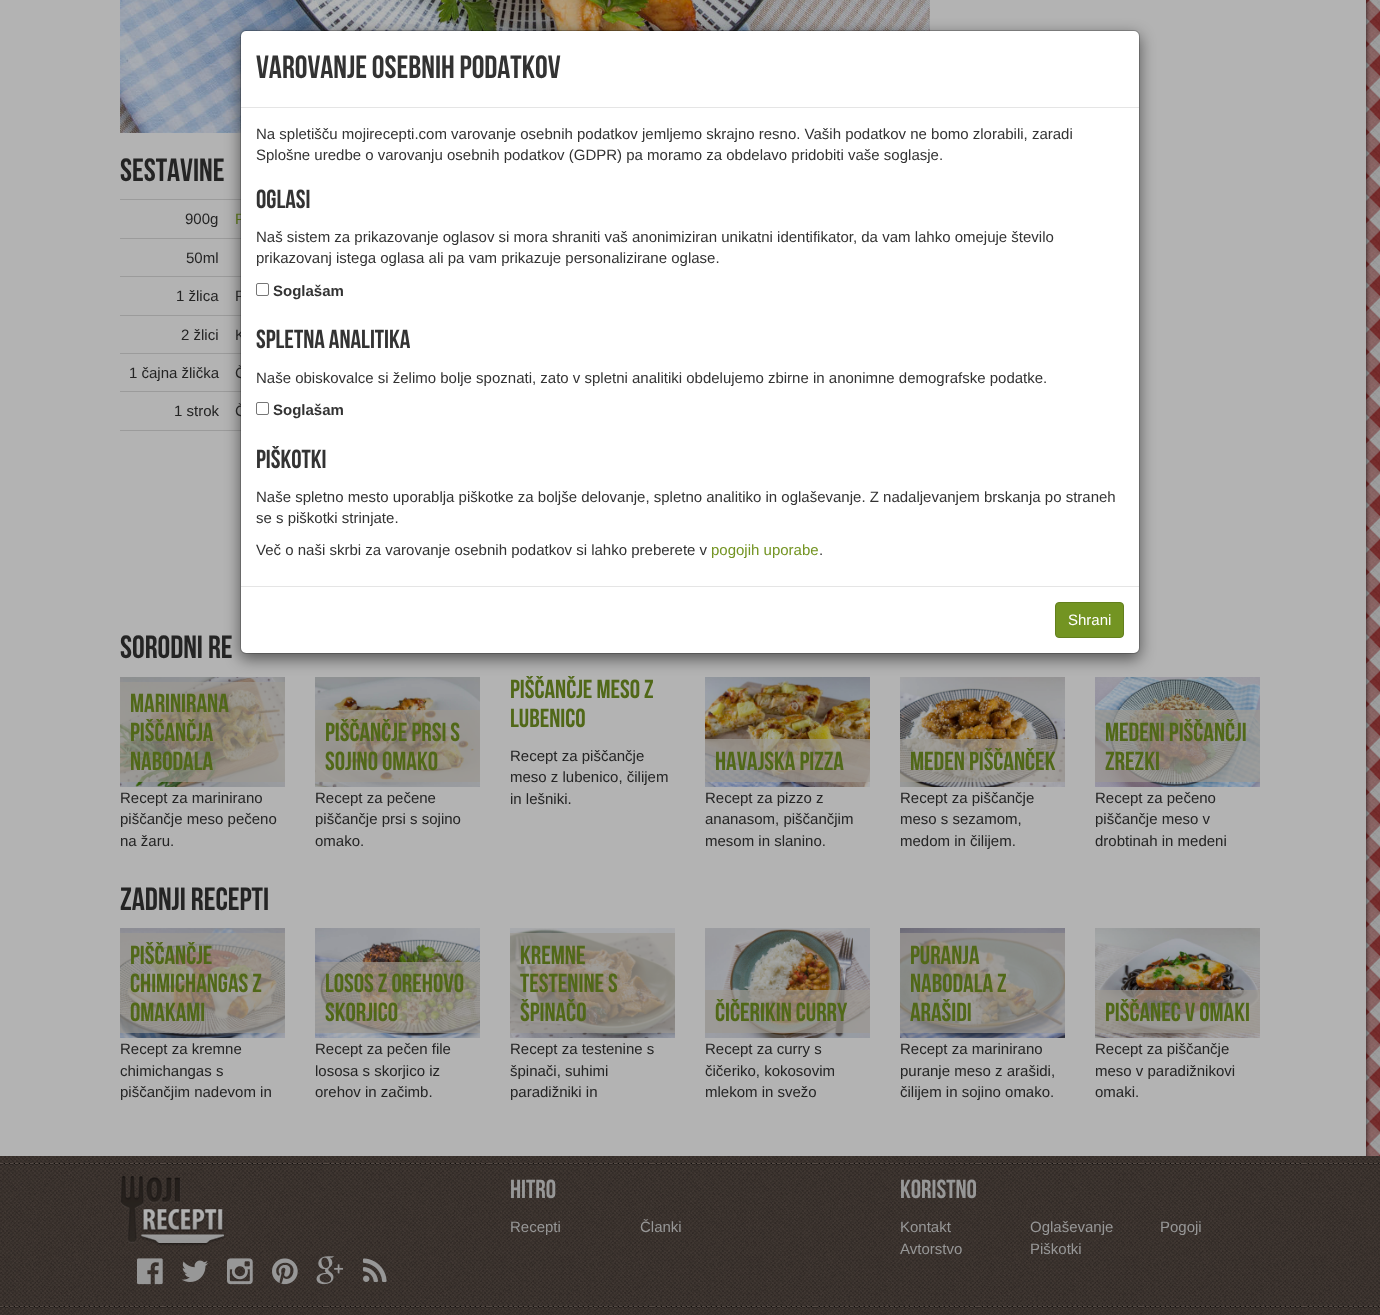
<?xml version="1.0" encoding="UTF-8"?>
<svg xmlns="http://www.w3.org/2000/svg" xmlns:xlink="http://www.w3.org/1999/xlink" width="1380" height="1315">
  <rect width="100%" height="100%" fill="#b3b3b3" />
  <image x="120" y="0" width="810" height="133" xlink:href="image2.png" />
  <rect x="120" y="199" width="121" height="1" fill="#9b9b9b" />
  <rect x="120" y="238" width="121" height="1" fill="#9b9b9b" />
  <rect x="120" y="276" width="121" height="1" fill="#9b9b9b" />
  <rect x="120" y="315" width="121" height="1" fill="#9b9b9b" />
  <rect x="120" y="353" width="121" height="1" fill="#9b9b9b" />
  <rect x="120" y="391" width="121" height="1" fill="#9b9b9b" />
  <rect x="120" y="430" width="121" height="1" fill="#9b9b9b" />
  <image x="120" y="677" width="165" height="110" xlink:href="image3.png" />
  <image x="315" y="677" width="165" height="110" xlink:href="image4.png" />
  <image x="705" y="677" width="165" height="110" xlink:href="image5.png" />
  <image x="900" y="677" width="165" height="110" xlink:href="image6.png" />
  <image x="1095" y="677" width="165" height="110" xlink:href="image7.png" />
  <rect x="240" y="35" width="900" height="624" rx="6" fill="#000000" fill-opacity="0.5" filter="blur(7.5px)" />
  <image x="1366" y="0" width="14" height="1156" xlink:href="image1.png" />
  <rect x="315" y="710" width="165" height="72" fill="#9c9992" fill-opacity="0.7" />
  <rect x="705" y="739" width="165" height="43" fill="#9c9992" fill-opacity="0.7" />
  <rect x="900" y="739" width="165" height="43" fill="#9c9992" fill-opacity="0.7" />
  <rect x="1095" y="710" width="165" height="72" fill="#9c9992" fill-opacity="0.7" />
  <image x="120" y="928" width="165" height="110" xlink:href="image8.png" />
  <image x="315" y="928" width="165" height="110" xlink:href="image9.png" />
  <rect x="315" y="962" width="165" height="71" fill="#9c9992" fill-opacity="0.7" />
  <image x="510" y="928" width="165" height="110" xlink:href="image10.png" />
  <image x="705" y="928" width="165" height="110" xlink:href="image11.png" />
  <rect x="705" y="990" width="165" height="43" fill="#9c9992" fill-opacity="0.7" />
  <image x="900" y="928" width="165" height="110" xlink:href="image12.png" />
  <image x="1095" y="928" width="165" height="110" xlink:href="image13.png" />
  <rect x="1095" y="990" width="165" height="43" fill="#9c9992" fill-opacity="0.7" />
  <image x="0" y="1156" width="1380" height="159" xlink:href="image14.png" />
  <image x="121" y="1176" width="104" height="70" xlink:href="image15.png" />
  <image x="137" y="1258" width="26" height="27" xlink:href="image16.png" />
  <image x="182" y="1260" width="26" height="22" xlink:href="image17.png" />
  <image x="227" y="1258" width="26" height="27" xlink:href="image18.png" />
  <image x="272" y="1258" width="26" height="27" xlink:href="image19.png" />
  <image x="316" y="1256" width="27" height="29" xlink:href="image20.png" />
  <image x="363" y="1258" width="24" height="24" xlink:href="image21.png" />
  <text x="120" y="181" style="font-family: Bebas Neue; font-size: 32px; fill: #242424">Sestavine</text>
  <text x="185" y="224" style="font-family: Liberation Sans; font-size: 15px; fill: #242424">900g</text>
  <text x="235" y="224" style="font-family: Liberation Sans; font-size: 15px; fill: #516818">P</text>
  <text x="186" y="263" style="font-family: Liberation Sans; font-size: 15px; fill: #242424">50ml</text>
  <text x="176" y="301" style="font-family: Liberation Sans; font-size: 15px; fill: #242424">1 žlica</text>
  <text x="235" y="301" style="font-family: Liberation Sans; font-size: 15px; fill: #242424">P</text>
  <text x="181" y="340" style="font-family: Liberation Sans; font-size: 15px; fill: #242424">2 žlici</text>
  <text x="235" y="340" style="font-family: Liberation Sans; font-size: 15px; fill: #242424">K</text>
  <text x="129" y="378" style="font-family: Liberation Sans; font-size: 15px; fill: #242424">1 čajna žlička</text>
  <text x="235" y="378" style="font-family: Liberation Sans; font-size: 15px; fill: #242424">Č</text>
  <text x="174" y="416" style="font-family: Liberation Sans; font-size: 15px; fill: #242424">1 strok</text>
  <text x="235" y="416" style="font-family: Liberation Sans; font-size: 15px; fill: #242424">Č</text>
  <rect x="241" y="31" width="898" height="622" rx="5" fill="#ffffff" />
  <rect x="240.5" y="30.5" width="899" height="623" rx="5.5" fill="none" stroke="#000000" stroke-opacity="0.2" />
  <text x="819" y="555" style="font-family: Liberation Sans; font-size: 15px; fill: #333333">.</text>
  <text x="711" y="555" style="font-family: Liberation Sans; font-size: 15px; fill: #739422">pogojih uporabe</text>
  <text x="256" y="555" style="font-family: Liberation Sans; font-size: 15px; fill: #333333">Več o naši skrbi za varovanje osebnih podatkov si lahko preberete v</text>
  <text x="256" y="523" style="font-family: Liberation Sans; font-size: 15px; fill: #333333">se s piškotki strinjate.</text>
  <text x="256" y="502" style="font-family: Liberation Sans; font-size: 15px; fill: #333333">Naše spletno mesto uporablja piškotke za boljše delovanje, spletno analitiko in oglaševanje. Z nadaljevanjem brskanja po straneh</text>
  <text x="256" y="468" style="font-family: Bebas Neue; font-size: 26px; fill: #333333">Piškotki</text>
  <text x="273" y="415" style="font-family: Liberation Sans; font-size: 15px; font-weight: bold; fill: #333333">Soglašam</text>
  <rect x="256.5" y="402.5" width="12" height="12" rx="1.5" fill="none" stroke="#767676" />
  <text x="256" y="383" style="font-family: Liberation Sans; font-size: 15px; fill: #333333">Naše obiskovalce si želimo bolje spoznati, zato v spletni analitiki obdelujemo zbirne in anonimne demografske podatke.</text>
  <text x="256" y="348" style="font-family: Bebas Neue; font-size: 26px; fill: #333333">Spletna analitika</text>
  <text x="273" y="296" style="font-family: Liberation Sans; font-size: 15px; font-weight: bold; fill: #333333">Soglašam</text>
  <rect x="256.5" y="283.5" width="12" height="12" rx="1.5" fill="none" stroke="#767676" />
  <text x="256" y="263" style="font-family: Liberation Sans; font-size: 15px; fill: #333333">prikazovanj istega oglasa ali pa vam prikazuje personalizirane oglase.</text>
  <text x="256" y="242" style="font-family: Liberation Sans; font-size: 15px; fill: #333333">Naš sistem za prikazovanje oglasov si mora shraniti vaš anonimiziran unikatni identifikator, da vam lahko omejuje število</text>
  <text x="256" y="208" style="font-family: Bebas Neue; font-size: 26px; fill: #333333">Oglasi</text>
  <text x="256" y="160" style="font-family: Liberation Sans; font-size: 15px; fill: #333333">Splošne uredbe o varovanju osebnih podatkov (GDPR) pa moramo za obdelavo pridobiti vaše soglasje.</text>
  <text x="256" y="139" style="font-family: Liberation Sans; font-size: 15px; fill: #333333">Na spletišču mojirecepti.com varovanje osebnih podatkov jemljemo skrajno resno. Vaših podatkov ne bomo zlorabili, zaradi</text>
  <rect x="1055.5" y="602.5" width="68" height="35" rx="3.5" fill="#739422" stroke="#637f1d" />
  <text x="1068" y="625" style="font-family: Liberation Sans; font-size: 15px; fill: #ffffff">Shrani</text>
  <text x="256" y="78" style="font-family: Bebas Neue; font-size: 32px; fill: #333333">Varovanje osebnih podatkov</text>
  <rect x="241" y="586" width="898" height="1" fill="#e5e5e5" />
  <rect x="241" y="107" width="898" height="1" fill="#e5e5e5" />
  <text x="120" y="658" style="font-family: Bebas Neue; font-size: 32px; fill: #242424">Sorodni re</text>
  <text x="130" y="712" style="font-family: Bebas Neue; font-size: 26px; fill: #516818">Marinirana</text>
  <text x="130" y="741" style="font-family: Bebas Neue; font-size: 26px; fill: #516818">piščančja</text>
  <text x="130" y="770" style="font-family: Bebas Neue; font-size: 26px; fill: #516818">nabodala</text>
  <text x="120" y="803" style="font-family: Liberation Sans; font-size: 15px; fill: #242424">Recept za marinirano</text>
  <text x="120" y="824" style="font-family: Liberation Sans; font-size: 15px; fill: #242424">piščančje meso pečeno</text>
  <text x="120" y="846" style="font-family: Liberation Sans; font-size: 15px; fill: #242424">na žaru.</text>
  <text x="325" y="741" style="font-family: Bebas Neue; font-size: 26px; fill: #516818">Piščančje prsi s</text>
  <text x="325" y="770" style="font-family: Bebas Neue; font-size: 26px; fill: #516818">sojino omako</text>
  <text x="315" y="803" style="font-family: Liberation Sans; font-size: 15px; fill: #242424">Recept za pečene</text>
  <text x="315" y="824" style="font-family: Liberation Sans; font-size: 15px; fill: #242424">piščančje prsi s sojino</text>
  <text x="315" y="846" style="font-family: Liberation Sans; font-size: 15px; fill: #242424">omako.</text>
  <text x="510" y="698" style="font-family: Bebas Neue; font-size: 26px; fill: #516818">Piščančje meso z</text>
  <text x="510" y="727" style="font-family: Bebas Neue; font-size: 26px; fill: #516818">lubenico</text>
  <text x="510" y="761" style="font-family: Liberation Sans; font-size: 15px; fill: #242424">Recept za piščančje</text>
  <text x="510" y="782" style="font-family: Liberation Sans; font-size: 15px; fill: #242424">meso z lubenico, čilijem</text>
  <text x="510" y="804" style="font-family: Liberation Sans; font-size: 15px; fill: #242424">in lešniki.</text>
  <text x="715" y="770" style="font-family: Bebas Neue; font-size: 26px; fill: #516818">Havajska pizza</text>
  <text x="705" y="803" style="font-family: Liberation Sans; font-size: 15px; fill: #242424">Recept za pizzo z</text>
  <text x="705" y="824" style="font-family: Liberation Sans; font-size: 15px; fill: #242424">ananasom, piščančjim</text>
  <text x="705" y="846" style="font-family: Liberation Sans; font-size: 15px; fill: #242424">mesom in slanino.</text>
  <text x="910" y="770" style="font-family: Bebas Neue; font-size: 26px; fill: #516818">Meden piščanček</text>
  <text x="900" y="803" style="font-family: Liberation Sans; font-size: 15px; fill: #242424">Recept za piščančje</text>
  <text x="900" y="824" style="font-family: Liberation Sans; font-size: 15px; fill: #242424">meso s sezamom,</text>
  <text x="900" y="846" style="font-family: Liberation Sans; font-size: 15px; fill: #242424">medom in čilijem.</text>
  <text x="1105" y="741" style="font-family: Bebas Neue; font-size: 26px; fill: #516818">Medeni piščančji</text>
  <text x="1105" y="770" style="font-family: Bebas Neue; font-size: 26px; fill: #516818">zrezki</text>
  <text x="1095" y="803" style="font-family: Liberation Sans; font-size: 15px; fill: #242424">Recept za pečeno</text>
  <text x="1095" y="824" style="font-family: Liberation Sans; font-size: 15px; fill: #242424">piščančje meso v</text>
  <text x="1095" y="846" style="font-family: Liberation Sans; font-size: 15px; fill: #242424">drobtinah in medeni</text>
  <text x="120" y="910" style="font-family: Bebas Neue; font-size: 32px; fill: #242424">Zadnji recepti</text>
  <text x="130" y="964" style="font-family: Bebas Neue; font-size: 26px; fill: #516818">Piščančje</text>
  <text x="130" y="992" style="font-family: Bebas Neue; font-size: 26px; fill: #516818">chimichangas z</text>
  <text x="130" y="1021" style="font-family: Bebas Neue; font-size: 26px; fill: #516818">omakami</text>
  <text x="120" y="1054" style="font-family: Liberation Sans; font-size: 15px; fill: #242424">Recept za kremne</text>
  <text x="120" y="1076" style="font-family: Liberation Sans; font-size: 15px; fill: #242424">chimichangas s</text>
  <text x="120" y="1097" style="font-family: Liberation Sans; font-size: 15px; fill: #242424">piščančjim nadevom in</text>
  <text x="325" y="992" style="font-family: Bebas Neue; font-size: 26px; fill: #516818">Losos z orehovo</text>
  <text x="325" y="1021" style="font-family: Bebas Neue; font-size: 26px; fill: #516818">skorjico</text>
  <text x="315" y="1054" style="font-family: Liberation Sans; font-size: 15px; fill: #242424">Recept za pečen file</text>
  <text x="315" y="1076" style="font-family: Liberation Sans; font-size: 15px; fill: #242424">lososa s skorjico iz</text>
  <text x="315" y="1097" style="font-family: Liberation Sans; font-size: 15px; fill: #242424">orehov in začimb.</text>
  <text x="520" y="964" style="font-family: Bebas Neue; font-size: 26px; fill: #516818">Kremne</text>
  <text x="520" y="992" style="font-family: Bebas Neue; font-size: 26px; fill: #516818">testenine s</text>
  <text x="520" y="1021" style="font-family: Bebas Neue; font-size: 26px; fill: #516818">špinačo</text>
  <text x="510" y="1054" style="font-family: Liberation Sans; font-size: 15px; fill: #242424">Recept za testenine s</text>
  <text x="510" y="1076" style="font-family: Liberation Sans; font-size: 15px; fill: #242424">špinači, suhimi</text>
  <text x="510" y="1097" style="font-family: Liberation Sans; font-size: 15px; fill: #242424">paradižniki in</text>
  <text x="715" y="1021" style="font-family: Bebas Neue; font-size: 26px; fill: #516818">Čičerikin curry</text>
  <text x="705" y="1054" style="font-family: Liberation Sans; font-size: 15px; fill: #242424">Recept za curry s</text>
  <text x="705" y="1076" style="font-family: Liberation Sans; font-size: 15px; fill: #242424">čičeriko, kokosovim</text>
  <text x="705" y="1097" style="font-family: Liberation Sans; font-size: 15px; fill: #242424">mlekom in svežo</text>
  <text x="910" y="964" style="font-family: Bebas Neue; font-size: 26px; fill: #516818">Puranja</text>
  <text x="910" y="992" style="font-family: Bebas Neue; font-size: 26px; fill: #516818">nabodala z</text>
  <text x="910" y="1021" style="font-family: Bebas Neue; font-size: 26px; fill: #516818">arašidi</text>
  <text x="900" y="1054" style="font-family: Liberation Sans; font-size: 15px; fill: #242424">Recept za marinirano</text>
  <text x="900" y="1076" style="font-family: Liberation Sans; font-size: 15px; fill: #242424">puranje meso z arašidi,</text>
  <text x="900" y="1097" style="font-family: Liberation Sans; font-size: 15px; fill: #242424">čilijem in sojino omako.</text>
  <text x="1105" y="1021" style="font-family: Bebas Neue; font-size: 26px; fill: #516818">Piščanec v omaki</text>
  <text x="1095" y="1054" style="font-family: Liberation Sans; font-size: 15px; fill: #242424">Recept za piščančje</text>
  <text x="1095" y="1076" style="font-family: Liberation Sans; font-size: 15px; fill: #242424">meso v paradižnikovi</text>
  <text x="1095" y="1097" style="font-family: Liberation Sans; font-size: 15px; fill: #242424">omaki.</text>
  <text x="510" y="1198" style="font-family: Bebas Neue; font-size: 26px; fill: #979797">Hitro</text>
  <text x="510" y="1232" style="font-family: Liberation Sans; font-size: 15px; fill: #979797">Recepti</text>
  <text x="640" y="1232" style="font-family: Liberation Sans; font-size: 15px; fill: #979797">Članki</text>
  <text x="900" y="1198" style="font-family: Bebas Neue; font-size: 26px; fill: #979797">Koristno</text>
  <text x="900" y="1232" style="font-family: Liberation Sans; font-size: 15px; fill: #979797">Kontakt</text>
  <text x="1030" y="1232" style="font-family: Liberation Sans; font-size: 15px; fill: #979797">Oglaševanje</text>
  <text x="1160" y="1232" style="font-family: Liberation Sans; font-size: 15px; fill: #979797">Pogoji</text>
  <text x="900" y="1254" style="font-family: Liberation Sans; font-size: 15px; fill: #979797">Avtorstvo</text>
  <text x="1030" y="1254" style="font-family: Liberation Sans; font-size: 15px; fill: #979797">Piškotki</text>
</svg>
